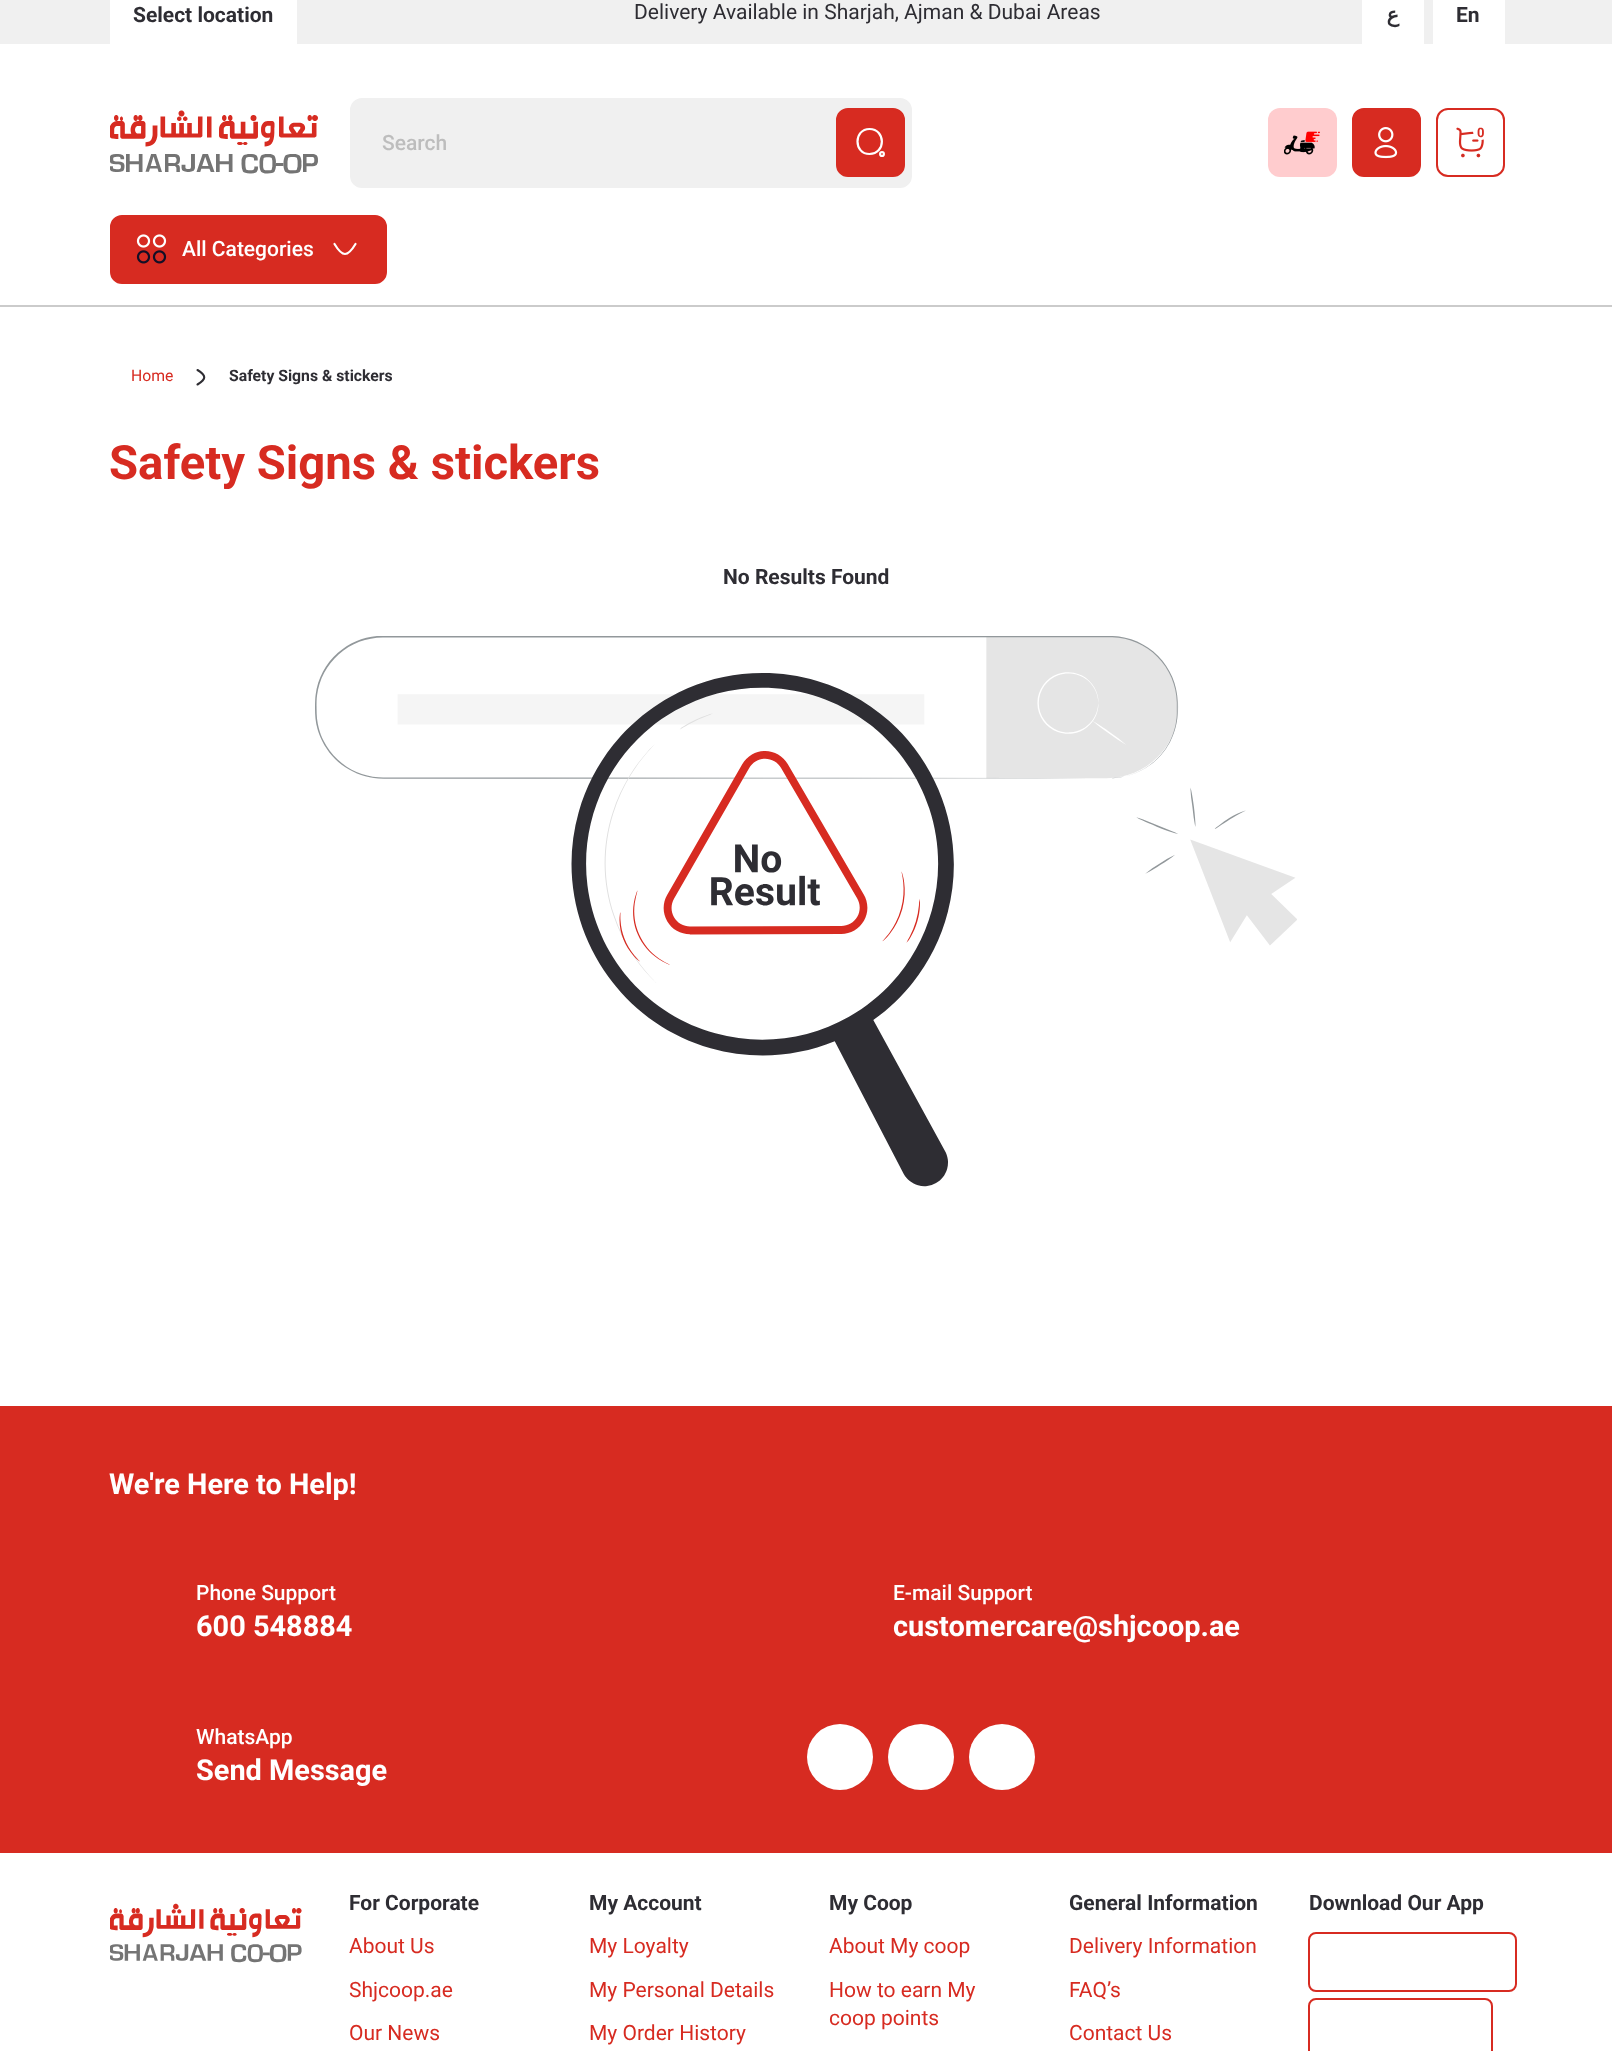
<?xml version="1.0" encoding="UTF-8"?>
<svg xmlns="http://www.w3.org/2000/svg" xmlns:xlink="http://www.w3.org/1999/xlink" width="1612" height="2051">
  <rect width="100%" height="100%" fill="#ffffff" />
  <rect y="305" width="1612" height="2" fill="#cbcbcb" />
  <rect width="1612" height="44" fill="#f0f0f0" />
  <rect x="110" width="187" height="44" fill="#ffffff" />
  <rect x="1362" width="62" height="44" fill="#ffffff" />
  <rect x="1433" width="72" height="44" fill="#ffffff" />
  <image x="110" y="110" width="208" height="64" xlink:href="image1.png" />
  <rect x="1268" y="108" width="69" height="69" rx="12" fill="#ffccce" />
  <image x="1284" y="131" width="36" height="24" xlink:href="image2.png" />
  <rect x="1353" y="109" width="67" height="67" rx="11" fill="#d72b21" stroke="#d72b21" stroke-width="2" />
  <image x="1374" y="127" width="24" height="32" xlink:href="image3.png" />
  <rect x="1437" y="109" width="67" height="67" rx="11" fill="none" stroke="#d72b21" stroke-width="2" />
  <image x="1456" y="127" width="28" height="31" xlink:href="image4.png" />
  <circle cx="1481.5" cy="131.5" r="8.5" fill="#ffffff" />
  <rect x="351" y="99" width="560" height="88" rx="11" fill="#f0f0f0" stroke="#f0f0f0" stroke-width="2" />
  <rect x="837" y="109" width="67" height="67" rx="11" fill="#d72b21" stroke="#d72b21" stroke-width="2" />
  <path d="M 869.5 129 c 16.5 0 16.5 25 0 25 c -16 0 -16 -25 0 -25 z m 12.5 23 c 2.5 0 2.5 4 0 4 c -2.5 0 -2.5 -4 0 -4 z" fill="none" stroke="#ffffff" stroke-width="2.2" stroke-linecap="round" stroke-linejoin="round" />
  <rect x="111" y="216" width="275" height="67" rx="11" fill="#d72b21" stroke="#d72b21" stroke-width="2" />
  <image x="136" y="234" width="31" height="30" xlink:href="image5.png" />
  <path d="M 355.5 244 c 0 0 -6 10 -10.5 10 c -4.5 0 -10.5 -10 -10.5 -10" fill="none" stroke="#ffffff" stroke-width="2.2" stroke-linecap="round" stroke-linejoin="round" />
  <path d="M 197.5 370 c 9 5.5 9 9 0 14.5" fill="none" stroke="#2e2d33" stroke-width="2.1" stroke-linecap="round" stroke-linejoin="round" />
  <image x="315" y="636" width="982" height="551" xlink:href="image6.png" />
  <rect y="1406" width="1612" height="447" fill="#d72b21" />
  <circle cx="840" cy="1757" r="33" fill="#ffffff" />
  <circle cx="921" cy="1757" r="33" fill="#ffffff" />
  <circle cx="1002" cy="1757" r="33" fill="#ffffff" />
  <image x="110" y="1903" width="192" height="60" xlink:href="image7.png" />
  <rect x="1309" y="1933" width="207" height="58" rx="7" fill="none" stroke="#d72b21" stroke-width="2" />
  <rect x="1309" y="1999" width="183" height="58" rx="7" fill="none" stroke="#d72b21" stroke-width="2" />
  <text x="133" y="22" style="font-family: Roboto; font-size: 21px; font-weight: bold; fill: #2e2d33">Select location</text>
  <text x="634" y="19" style="font-family: Roboto; font-size: 21px; fill: #2e2d33">Delivery Available in Sharjah, Ajman &amp; Dubai Areas</text>
  <text x="1399" y="22" style="font-family: DejaVu Sans; font-size: 21px; font-weight: bold; direction: rtl; fill: #2e2d33">ع</text>
  <text x="1456" y="22" style="font-family: Roboto; font-size: 21px; font-weight: bold; fill: #2e2d33">En</text>
  <text x="1477" y="137" style="font-family: Roboto; font-size: 13px; font-weight: bold; fill: #d72b21">0</text>
  <text x="382" y="150" style="font-family: Roboto; font-size: 21px; font-weight: 500; fill: #bdbdbd">Search</text>
  <text x="182" y="256" style="font-family: Roboto; font-size: 21px; font-weight: 500; fill: #ffffff">All Categories</text>
  <text x="131" y="381" style="font-family: Roboto; font-size: 15.75px; fill: #d72b21">Home</text>
  <text x="229" y="381" style="font-family: Roboto; font-size: 15.75px; font-weight: bold; fill: #2e2d33">Safety Signs &amp; stickers</text>
  <text x="109" y="479" style="font-family: Roboto; font-size: 47.25px; font-weight: bold; fill: #d72b21">Safety Signs &amp; stickers</text>
  <text x="723" y="584" style="font-family: Roboto; font-size: 21px; font-weight: bold; fill: #2e2d33">No Results Found</text>
  <text x="109" y="1494" style="font-family: Roboto; font-size: 28.9px; font-weight: bold; fill: #ffffff">We're Here to Help!</text>
  <text x="196" y="1600" style="font-family: Roboto; font-size: 21px; font-weight: 500; fill: #ffffff">Phone Support</text>
  <text x="196" y="1636" style="font-family: Roboto; font-size: 28.9px; font-weight: bold; fill: #ffffff">600 548884</text>
  <text x="893" y="1600" style="font-family: Roboto; font-size: 21px; font-weight: 500; fill: #ffffff">E-mail Support</text>
  <text x="893" y="1636" style="font-family: Roboto; font-size: 28.9px; font-weight: bold; fill: #ffffff">customercare@shjcoop.ae</text>
  <text x="196" y="1744" style="font-family: Roboto; font-size: 21px; font-weight: 500; fill: #ffffff">WhatsApp</text>
  <text x="196" y="1780" style="font-family: Roboto; font-size: 28.9px; font-weight: bold; fill: #ffffff">Send Message</text>
  <text x="349" y="1910" style="font-family: Roboto; font-size: 21px; font-weight: bold; fill: #2e2d33">For Corporate</text>
  <text x="349" y="1953" style="font-family: Roboto; font-size: 21px; fill: #d72b21">About Us</text>
  <text x="349" y="1997" style="font-family: Roboto; font-size: 21px; fill: #d72b21">Shjcoop.ae</text>
  <text x="349" y="2040" style="font-family: Roboto; font-size: 21px; fill: #d72b21">Our News</text>
  <text x="589" y="1910" style="font-family: Roboto; font-size: 21px; font-weight: bold; fill: #2e2d33">My Account</text>
  <text x="589" y="1953" style="font-family: Roboto; font-size: 21px; fill: #d72b21">My Loyalty</text>
  <text x="589" y="1997" style="font-family: Roboto; font-size: 21px; fill: #d72b21">My Personal Details</text>
  <text x="589" y="2040" style="font-family: Roboto; font-size: 21px; fill: #d72b21">My Order History</text>
  <text x="829" y="1910" style="font-family: Roboto; font-size: 21px; font-weight: bold; fill: #2e2d33">My Coop</text>
  <text x="829" y="1953" style="font-family: Roboto; font-size: 21px; fill: #d72b21">About My coop</text>
  <text x="829" y="1997" style="font-family: Roboto; font-size: 21px; fill: #d72b21">How to earn My</text>
  <text x="829" y="2025" style="font-family: Roboto; font-size: 21px; fill: #d72b21">coop points</text>
  <text x="1069" y="1910" style="font-family: Roboto; font-size: 21px; font-weight: bold; fill: #2e2d33">General Information</text>
  <text x="1069" y="1953" style="font-family: Roboto; font-size: 21px; fill: #d72b21">Delivery Information</text>
  <text x="1069" y="1997" style="font-family: Roboto; font-size: 21px; fill: #d72b21">FAQ’s</text>
  <text x="1069" y="2040" style="font-family: Roboto; font-size: 21px; fill: #d72b21">Contact Us</text>
  <text x="1309" y="1910" style="font-family: Roboto; font-size: 21px; font-weight: bold; fill: #2e2d33">Download Our App</text>
</svg>
